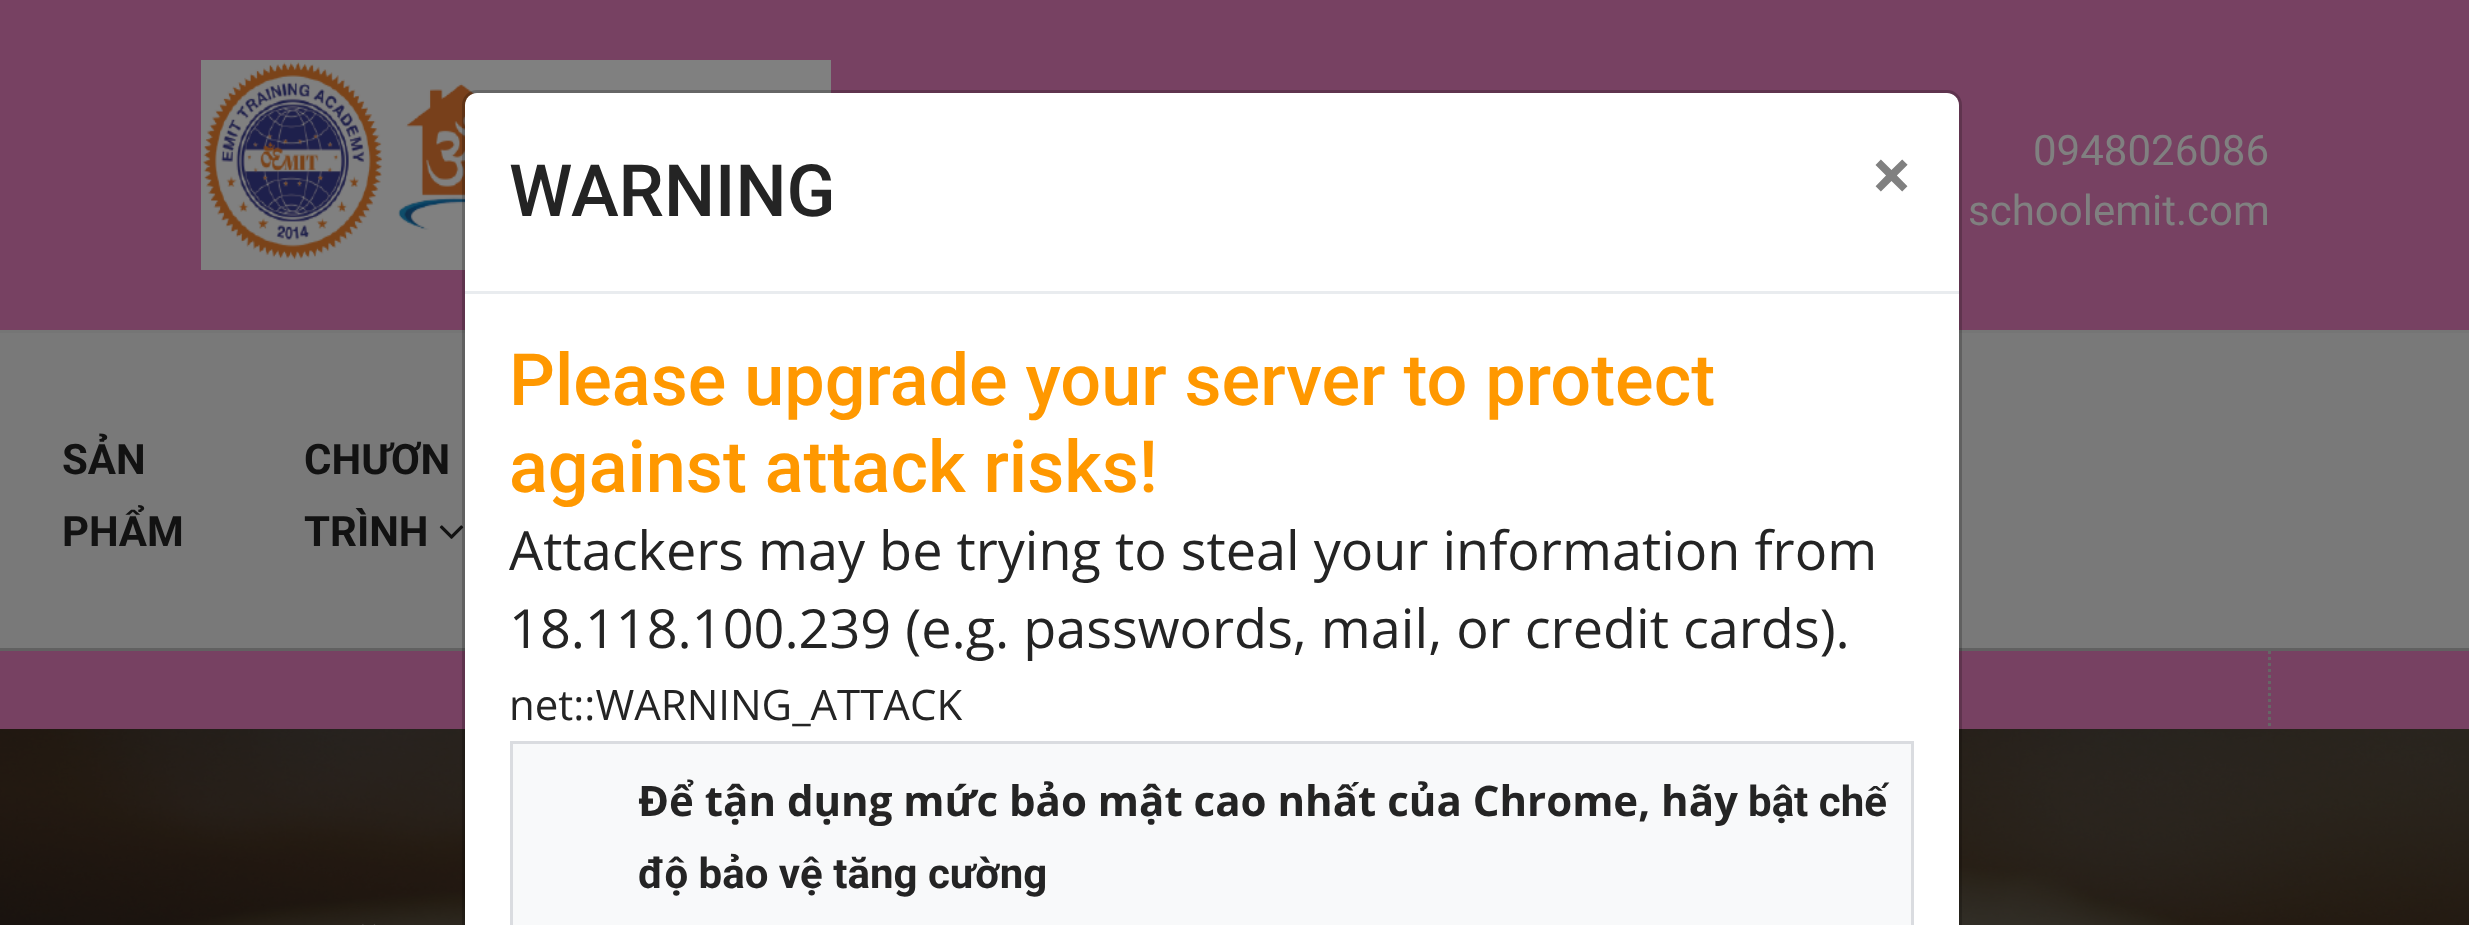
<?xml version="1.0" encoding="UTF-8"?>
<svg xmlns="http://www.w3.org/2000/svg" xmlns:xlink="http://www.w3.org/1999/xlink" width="2469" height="925">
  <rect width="100%" height="100%" fill="#797979" />
  <rect width="2469" height="330" fill="#774162" />
  <rect y="330" width="2469" height="3" fill="#757575" />
  <image x="201" y="60" width="630" height="210" xlink:href="image1.png" />
  <image x="439" y="525" width="25" height="14" xlink:href="image2.png" />
  <rect y="648" width="2469" height="3" fill="#616161" />
  <rect y="651" width="2469" height="78" fill="#774162" />
  <path d="M 2269.5 651 v 138" fill="none" stroke="#666666" stroke-width="3" stroke-dasharray="3 3" />
  <image x="0" y="729" width="2469" height="196" xlink:href="image3.png" />
  <path d="M 477 93 h 1470 c 6.5 0 12 5.5 12 12 v 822 h -1494 v -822 c 0 -6.5 5.5 -12 12 -12 z" fill="#ffffff" />
  <rect x="463.5" y="91.5" width="1497" height="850" rx="13.5" fill="none" stroke="#000000" stroke-opacity="0.2" stroke-width="3" />
  <rect x="465" y="291" width="1494" height="3" fill="#e9ecef" />
  <rect x="511.5" y="742.5" width="1401" height="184" fill="#f8f9fa" stroke="#dadce0" stroke-width="3" />
  <image x="362" y="924" width="14" height="1" xlink:href="image4.png" />
  <text x="2033" y="165" style="font-family: Roboto; font-size: 42px; fill: #808080">0948026086</text>
  <text x="1968" y="225" style="font-family: Roboto; font-size: 42px; fill: #808080">schoolemit.com</text>
  <text x="62" y="474" style="font-family: Roboto; font-size: 42px; font-weight: bold; fill: #121212">SẢN</text>
  <text x="62" y="546" style="font-family: Roboto; font-size: 42px; font-weight: bold; fill: #121212">PHẨM</text>
  <text x="304" y="474" style="font-family: Roboto; font-size: 42px; font-weight: bold; fill: #121212">CHƯƠN</text>
  <text x="304" y="546" style="font-family: Roboto; font-size: 42px; font-weight: bold; fill: #121212">TRÌNH</text>
  <text x="509" y="216" style="font-family: Roboto; font-size: 72px; font-weight: 500; fill: #242424">WARNING</text>
  <text x="1871" y="201" style="font-family: Open Sans; font-size: 72px; font-weight: bold; fill: #808080">×</text>
  <text x="509" y="405" style="font-family: Roboto; font-size: 72px; font-weight: 500; fill: #ff9800">Please upgrade your server to protect</text>
  <text x="509" y="492" style="font-family: Roboto; font-size: 72px; font-weight: 500; fill: #ff9800">against attack risks!</text>
  <text x="509" y="570" style="font-family: Open Sans; font-size: 54px; fill: #242424">Attackers may be trying to steal your information from</text>
  <text x="509" y="648" style="font-family: Open Sans; font-size: 54px; fill: #242424">18.118.100.239 (e.g. passwords, mail, or credit cards).</text>
  <text x="509" y="720" style="font-family: Open Sans; font-size: 42px; fill: #242424">net::WARNING_ATTACK</text>
  <text x="638" y="816" style="font-family: Open Sans; font-size: 42px; font-weight: bold; fill: #242424">Để tận dụng mức bảo mật cao nhất của Chrome, hãy</text>
  <text x="1748" y="816" style="font-family: Roboto; font-size: 42px; font-weight: bold; fill: #242424">bật chế</text>
  <text x="638" y="888" style="font-family: Roboto; font-size: 42px; font-weight: bold; fill: #242424">độ bảo vệ tăng cường</text>
</svg>
